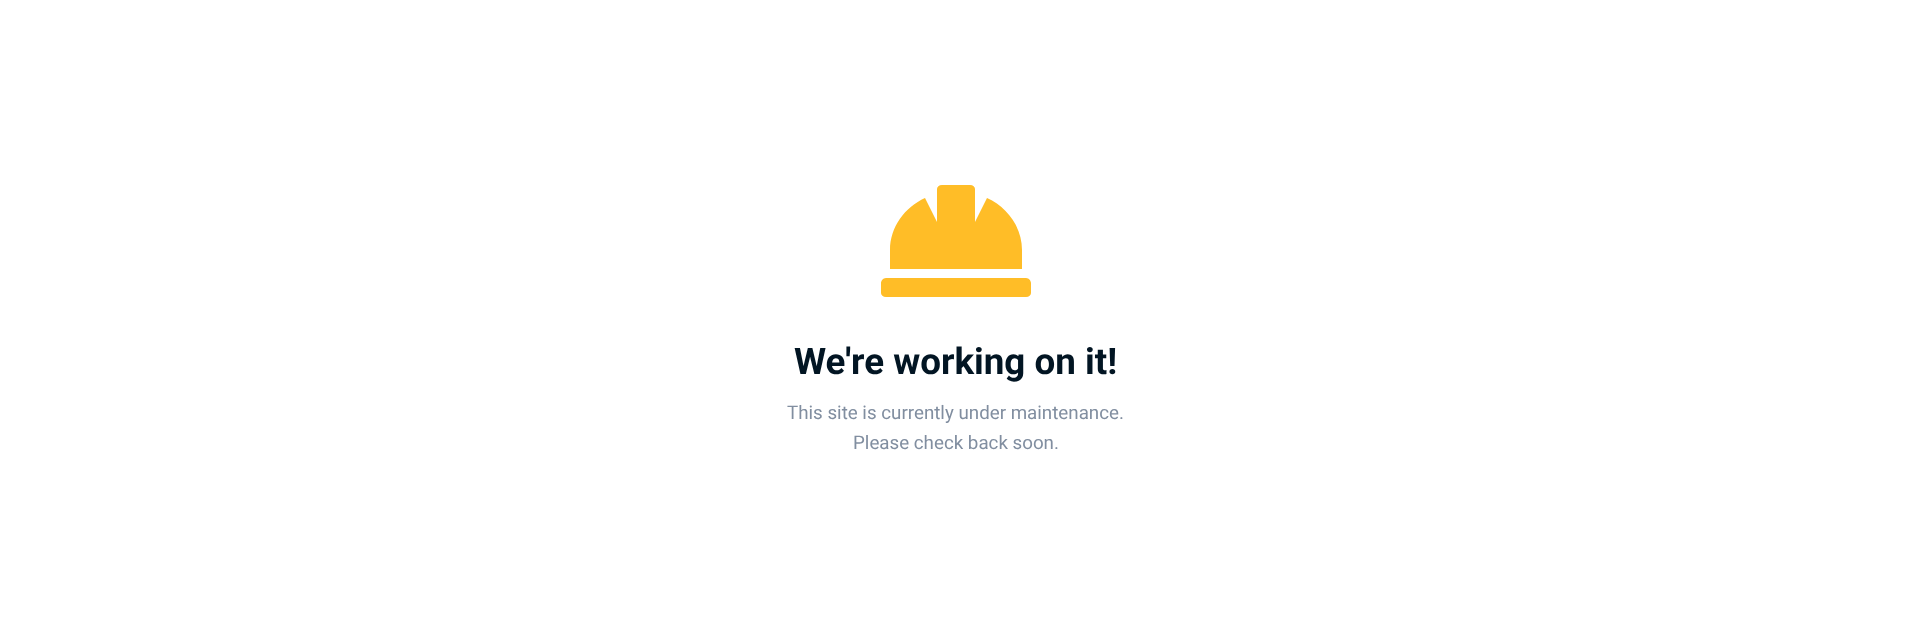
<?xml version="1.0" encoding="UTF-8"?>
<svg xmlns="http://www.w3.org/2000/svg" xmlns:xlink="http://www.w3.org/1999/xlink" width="1911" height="624">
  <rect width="100%" height="100%" fill="#ffffff" />
  <path d="M 1026 278 h -140 c -3 0 -5 3 -5 5 v 10 c 0 2 2 4 5 4 h 140 c 3 0 5 -2 5 -4 v -10 c 0 -2 -2 -5 -5 -5 z m -4 -28 v 19 h -132 v -19 c 0 -23 15 -43 35 -52 l 12 24 v -33 c 0 -2 2 -4 5 -4 h 28 c 3 0 5 2 5 4 v 33 l 12 -24 c 20 9 35 29 35 52 z" fill="#ffbd27" fill-rule="evenodd" />
  <text x="794" y="374" style="font-family: Roboto; font-size: 36.75px; font-weight: bold; fill: #021523">We're working on it!</text>
  <text x="787" y="419" style="font-family: Roboto; font-size: 18.75px; fill: #818ea0">This site is currently under maintenance.</text>
  <text x="853" y="449" style="font-family: Roboto; font-size: 18.75px; fill: #818ea0">Please check back soon.</text>
</svg>
